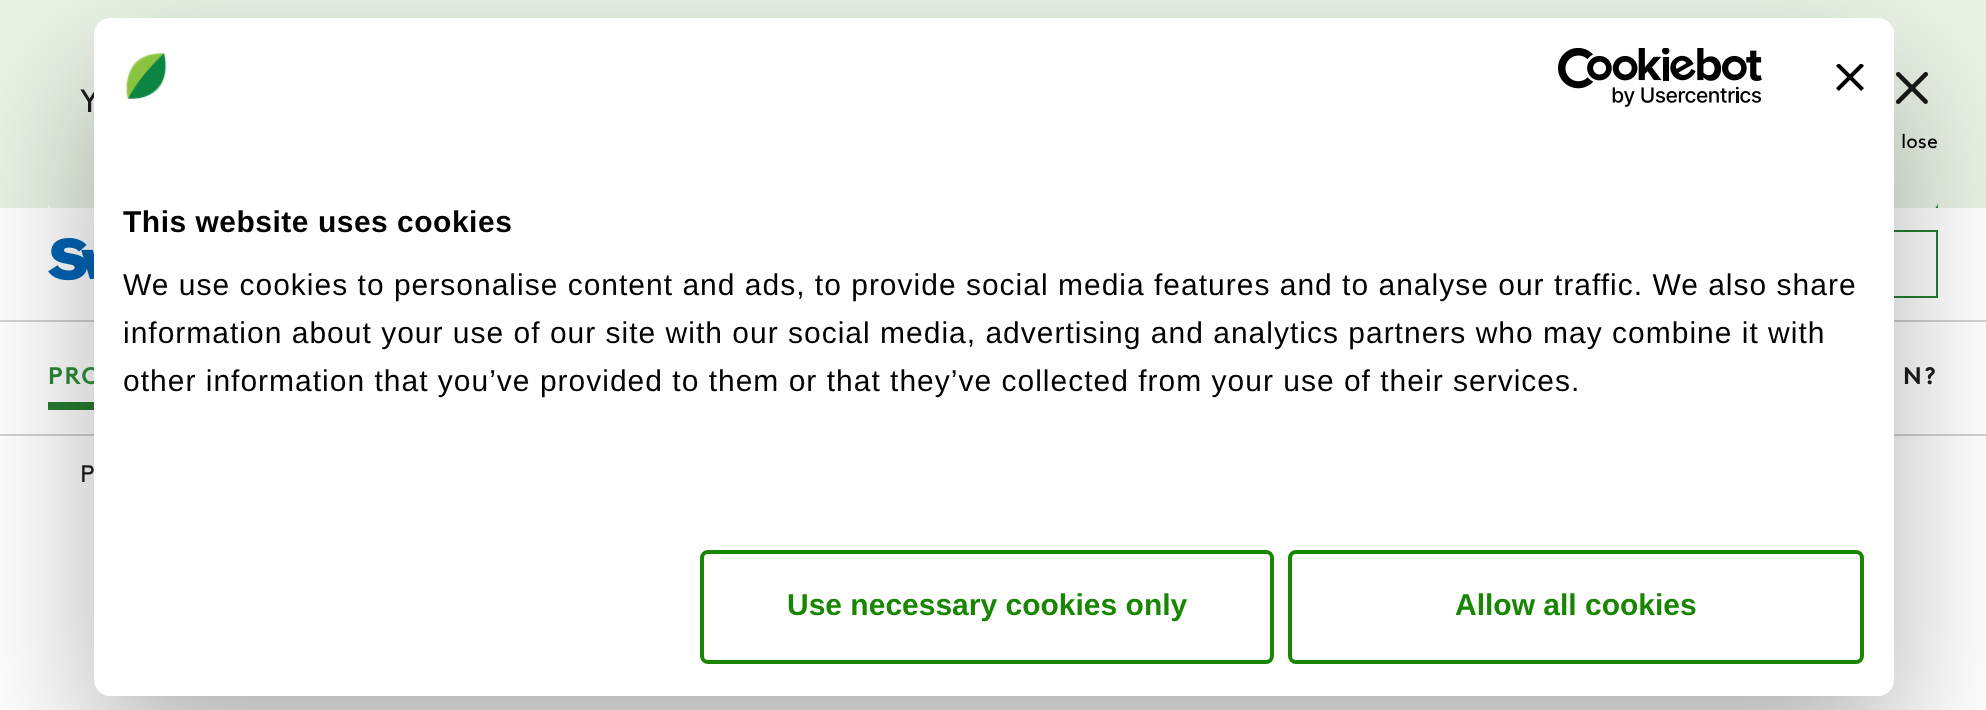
<?xml version="1.0" encoding="UTF-8"?>
<svg xmlns="http://www.w3.org/2000/svg" xmlns:xlink="http://www.w3.org/1999/xlink" width="1986" height="710">
  <defs>
    <clipPath id="clip1"><rect x="94" y="18" width="1800" height="678" rx="16" /></clipPath>
  </defs>
  <rect width="100%" height="100%" fill="#e9f2e5" />
  <image x="1895" y="71" width="34" height="33" xlink:href="image1.png" />
  <rect y="322" width="1986" height="388" fill="#ffffff" />
  <path d="M 48 208 h 1762 v 2 h -1754 c -4.5 0 -8 -3.5 -8 -8 z" fill="#ffffff" />
  <path d="M 1810 208 h 128 v -6 c 0 4.5 -3.5 8 -8 8 h -120 z" fill="#277d32" />
  <rect y="208" width="1986" height="112" fill="#ffffff" />
  <rect y="320" width="1986" height="2" fill="#d1d2d2" />
  <image x="48" y="238" width="46" height="43" xlink:href="image5.png" />
  <rect y="434" width="1986" height="2" fill="#d1d2d2" />
  <rect x="1747" y="231" width="190" height="66" fill="none" stroke="#277d32" stroke-width="2" />
  <rect x="48" y="402" width="46" height="8" fill="#277d32" />
  <rect x="94" y="82" width="1800" height="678" rx="16" fill="#000000" fill-opacity="0.3" filter="blur(68px)" />
  <text x="80" y="112" style="font-family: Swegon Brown; font-size: 32px; fill: #191919">Y</text>
  <text x="1901" y="148" style="font-family: Swegon Brown; font-size: 20px; fill: #000000">lose</text>
  <text x="48" y="384" style="font-family: Swegon Brown; font-size: 24px; font-weight: bold; letter-spacing: 2px; fill: #277d32">PRO</text>
  <rect x="94" y="18" width="1800" height="678" rx="16" fill="#ffffff" />
  <rect x="1290" y="552" width="572" height="110" rx="6" fill="none" stroke="#188600" stroke-width="4" />
  <text x="1455" y="615" style="font-family: Liberation Sans; font-size: 30px; font-weight: bold; fill: #188600">Allow all cookies</text>
  <rect x="702" y="552" width="570" height="110" rx="6" fill="none" stroke="#188600" stroke-width="4" />
  <text x="787" y="615" style="font-family: Liberation Sans; font-size: 30px; font-weight: bold; fill: #188600">Use necessary cookies only</text>
  <g clip-path="url(#clip1)">
    <rect x="94" y="694" width="1800" height="2" fill="#ffffff" />
  </g>
  <text x="123" y="391" style="font-family: Liberation Sans; font-size: 30px; letter-spacing: 1px; fill: #000000">other information that you’ve provided to them or that they’ve collected from your use of their services.</text>
  <text x="123" y="343" style="font-family: Liberation Sans; font-size: 30px; letter-spacing: 1px; fill: #000000">information about your use of our site with our social media, advertising and analytics partners who may combine it with</text>
  <text x="123" y="295" style="font-family: Liberation Sans; font-size: 30px; letter-spacing: 1px; fill: #000000">We use cookies to personalise content and ads, to provide social media features and to analyse our traffic. We also share</text>
  <text x="123" y="232" style="font-family: Liberation Sans; font-size: 30px; font-weight: bold; letter-spacing: 0.5px; fill: #000000">This website uses cookies</text>
  <image x="1836" y="64" width="28" height="27" xlink:href="image4.png" />
  <image x="1558" y="48" width="204" height="59" xlink:href="image3.png" />
  <image x="125" y="53" width="42" height="46" xlink:href="image2.png" />
  <text x="1903" y="384" style="font-family: Swegon Brown; font-size: 24px; font-weight: bold; letter-spacing: 2px; fill: #191919">N?</text>
  <text x="80" y="482" style="font-family: Swegon Brown; font-size: 24px; fill: #191919">P</text>
</svg>
